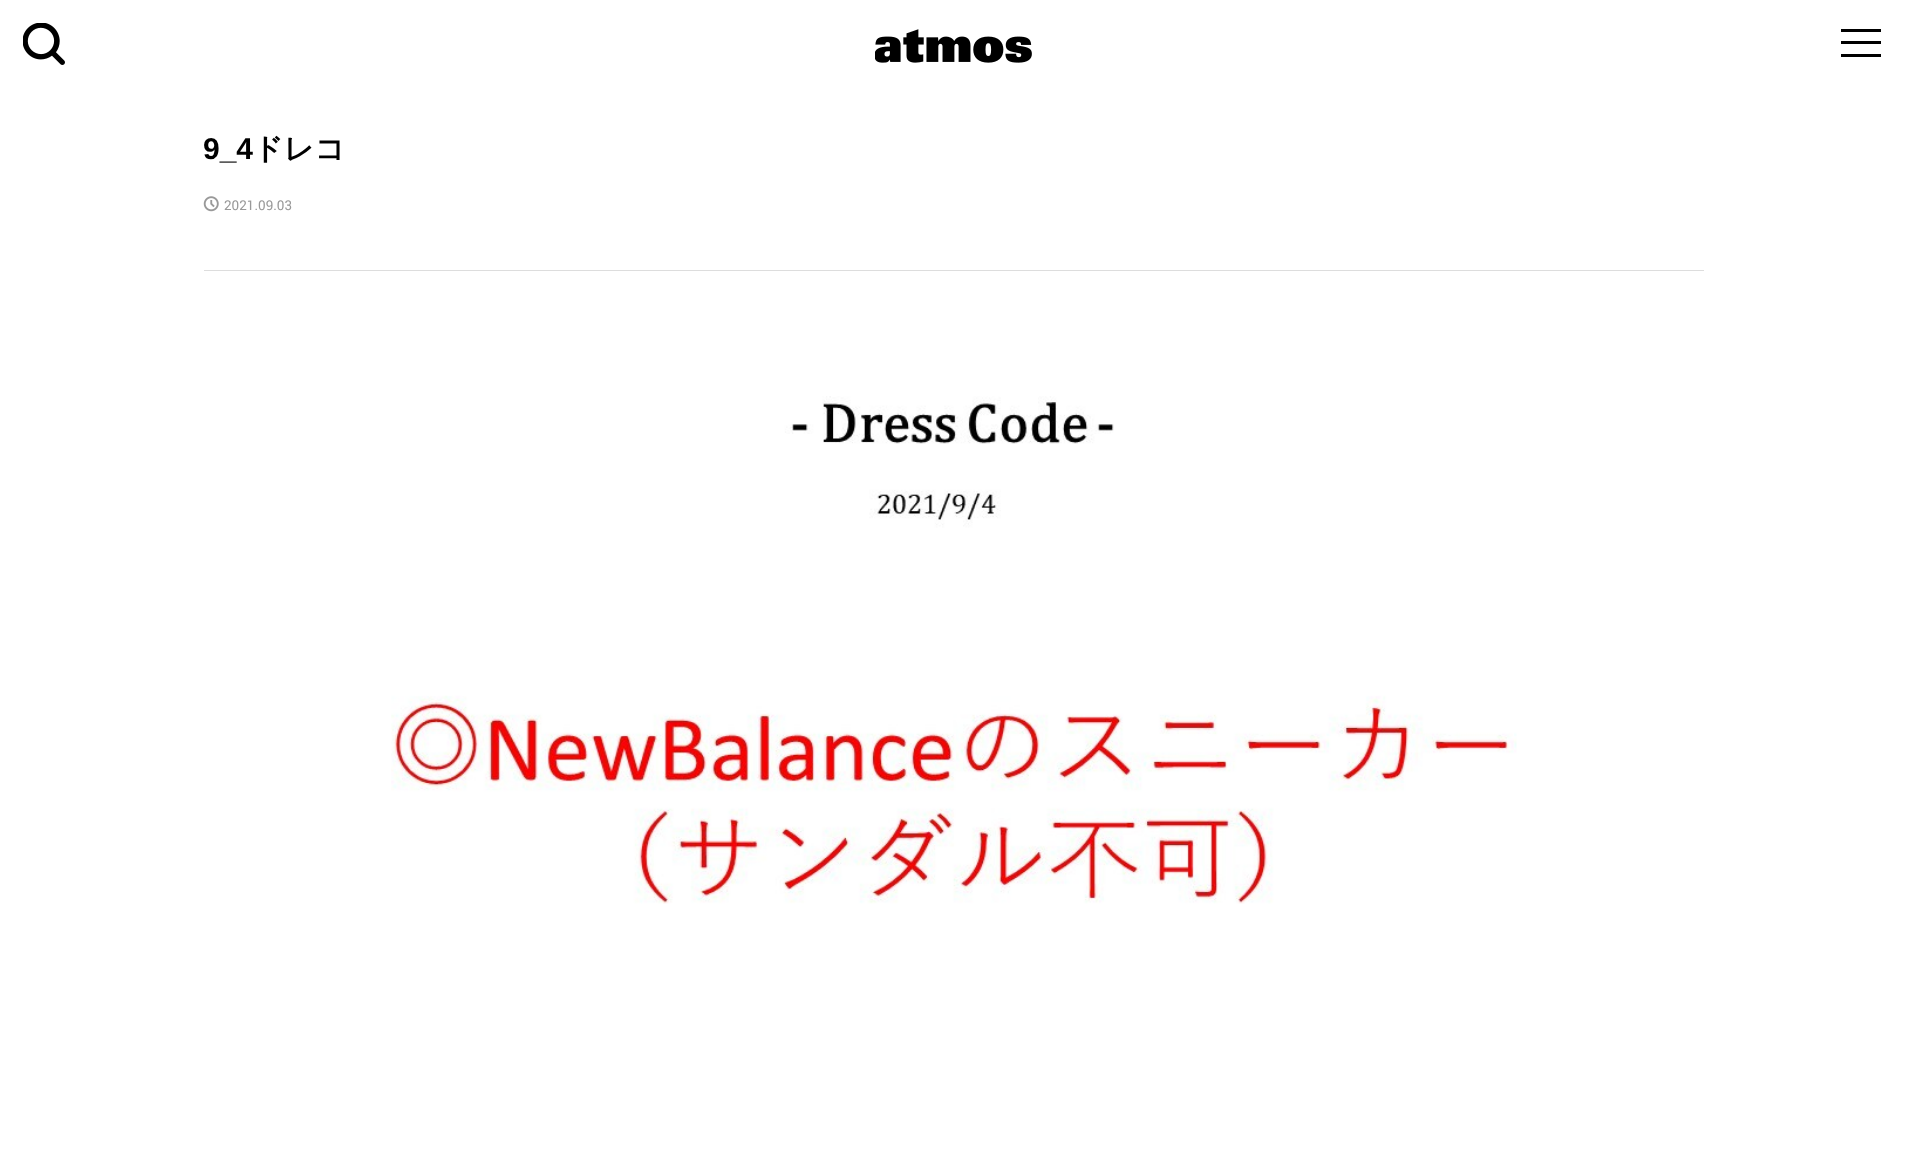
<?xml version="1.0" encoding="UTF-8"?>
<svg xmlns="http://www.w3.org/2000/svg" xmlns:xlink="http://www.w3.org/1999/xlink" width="1906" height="1151">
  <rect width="100%" height="100%" fill="#ffffff" />
  <image x="23" y="23" width="42" height="42" xlink:href="image1.png" />
  <image x="875" y="29" width="157" height="34" xlink:href="image2.png" />
  <rect x="1841" y="41" width="40" height="3" fill="#000000" />
  <rect x="1841" y="29" width="40" height="3" fill="#000000" />
  <rect x="1841" y="54" width="40" height="3" fill="#000000" />
  <rect x="204" y="270" width="1500" height="1" fill="#dddddd" />
  <image x="203" y="196" width="16" height="16" xlink:href="image3.png" />
  <image x="391" y="396" width="1126" height="508" xlink:href="image4.png" />
  <text x="203" y="159" style="font-family: Liberation Sans; font-size: 30px; font-weight: bold; fill: #000000">9_4</text>
  <text x="253" y="159" style="font-family: WenQuanYi Zen Hei; font-size: 30px; font-weight: bold; fill: #000000">ドレコ</text>
  <text x="224" y="210" style="font-family: Yantramanav; font-size: 15px; fill: #999999">2021.09.03</text>
</svg>
